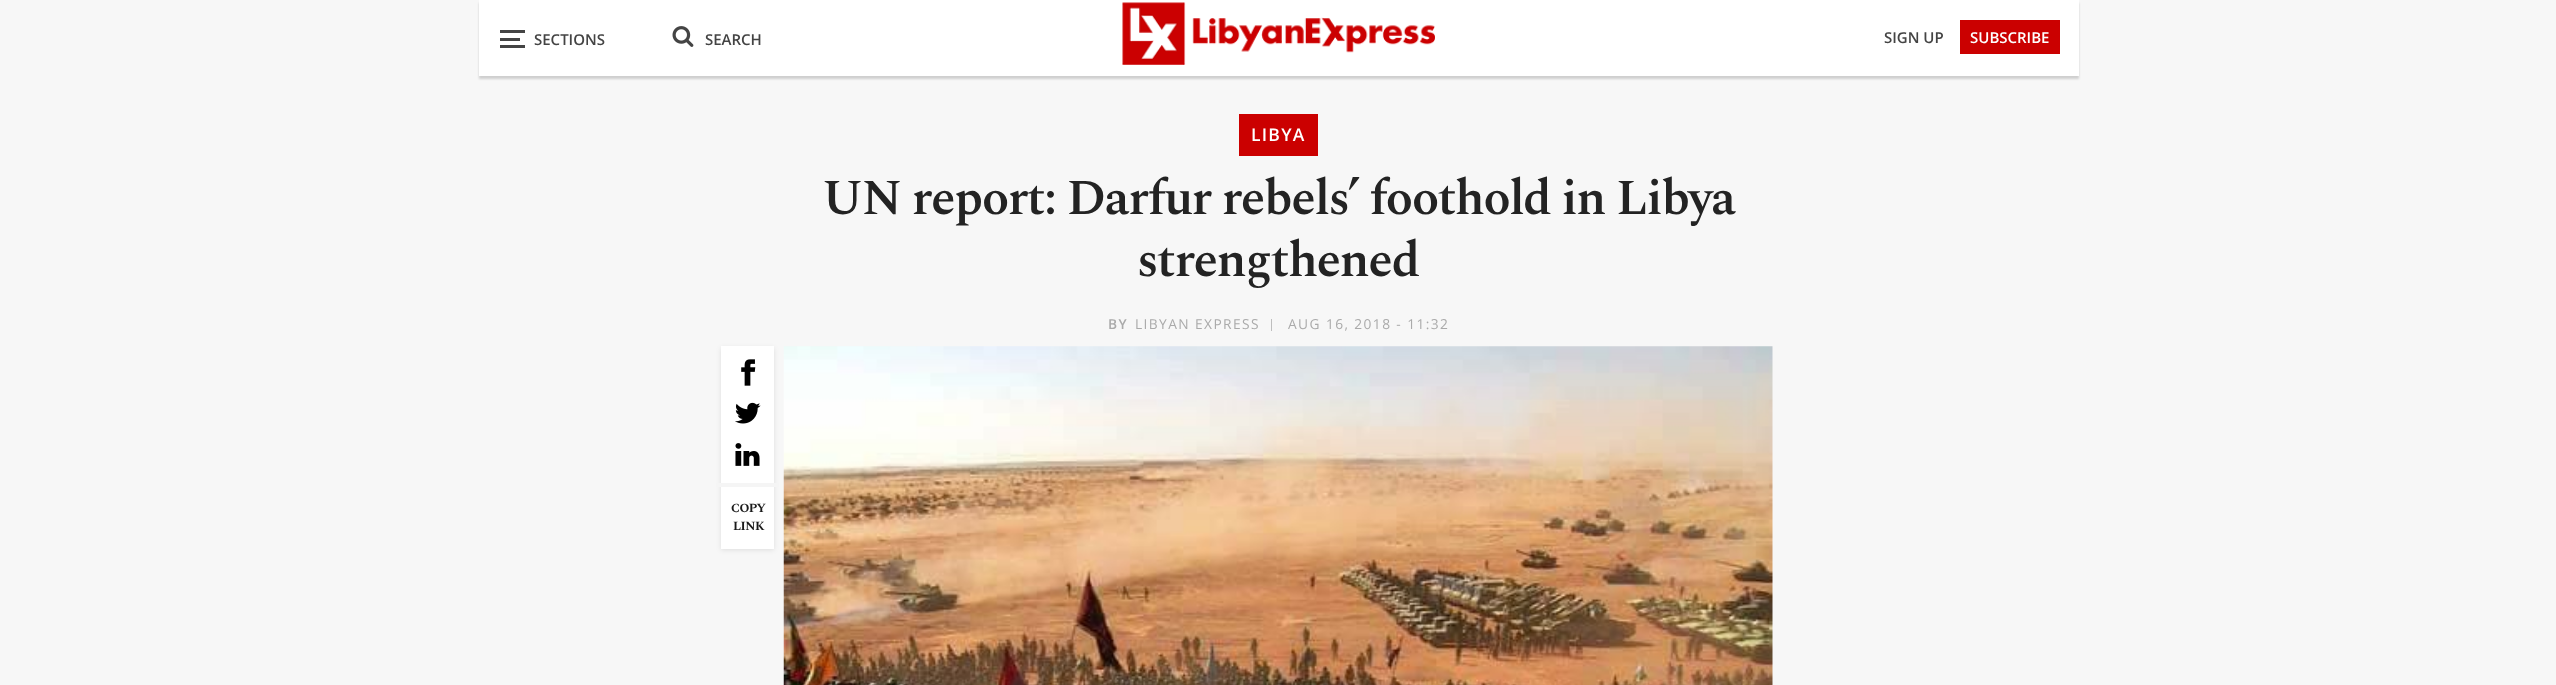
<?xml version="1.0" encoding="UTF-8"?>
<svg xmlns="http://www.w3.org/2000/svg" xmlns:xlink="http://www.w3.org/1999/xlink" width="2556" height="685">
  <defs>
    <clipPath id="clip1"><path d="M 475 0 h 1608 v 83 h -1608 z m 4 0 h 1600 v 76 h -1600 z" clip-rule="evenodd" /></clipPath>
  </defs>
  <rect width="100%" height="100%" fill="#f7f7f7" />
  <rect x="479" width="1600" height="76" fill="#ffffff" />
  <g clip-path="url(#clip1)">
    <rect x="479" y="3" width="1600" height="76" fill="#000000" fill-opacity="0.16" filter="blur(1px)" />
  </g>
  <rect x="500" y="38" width="20" height="3" fill="#444444" />
  <rect x="500" y="30" width="25" height="3" fill="#444444" />
  <rect x="500" y="45" width="25" height="3" fill="#444444" />
  <image x="672" y="26" width="22" height="21" xlink:href="image1.png" />
  <image x="1122" y="2" width="313" height="63" xlink:href="image2.png" />
  <rect x="1960" y="20" width="100" height="34" fill="#cb0000" />
  <rect x="1239" y="114" width="79" height="42" fill="#cb0000" />
  <rect x="1271" y="319" width="1" height="12" fill="#bebebe" />
  <rect x="721" y="348" width="53" height="202" fill="#000000" fill-opacity="0.1" filter="blur(2.5px)" />
  <rect x="721" y="346" width="53" height="203" fill="#ffffff" />
  <image x="741" y="359" width="15" height="27" xlink:href="image3.png" />
  <image x="735" y="402" width="26" height="22" xlink:href="image4.png" />
  <image x="735" y="443" width="25" height="23" xlink:href="image5.png" />
  <rect x="716" y="483" width="63" height="4" fill="#f5f5f5" />
  <image x="783" y="346" width="990" height="339" xlink:href="image6.png" />
  <text x="534" y="45" style="font-family: Open Sans; font-size: 15px; font-weight: 600; fill: #444444">SECTIONS</text>
  <text x="705" y="45" style="font-family: Open Sans; font-size: 15px; font-weight: 600; fill: #444444">SEARCH</text>
  <text x="1884" y="43" style="font-family: Open Sans; font-size: 15px; font-weight: 600; fill: #444444">SIGN UP</text>
  <text x="1970" y="43" style="font-family: Open Sans; font-size: 15px; font-weight: 600; fill: #ffffff">SUBSCRIBE</text>
  <text x="1251" y="141" style="font-family: Open Sans; font-size: 17.5px; font-weight: 600; letter-spacing: 1.25px; fill: #ffffff">LIBYA</text>
  <text x="822" y="214" style="font-family: Spectral; font-size: 50px; font-weight: 600; letter-spacing: -1.5px; fill: #232323">UN report: Darfur rebels’ foothold in Libya</text>
  <text x="1137" y="276" style="font-family: Spectral; font-size: 50px; font-weight: 600; letter-spacing: -1.5px; fill: #232323">strengthened</text>
  <text x="1108" y="329" style="font-family: Open Sans; font-size: 13.75px; font-weight: 600; letter-spacing: 1.4px; fill: #aaaaaa">BY</text>
  <text x="1135" y="329" style="font-family: Open Sans; font-size: 13.75px; letter-spacing: 1.4px; fill: #aaaaaa">LIBYAN EXPRESS</text>
  <text x="1288" y="329" style="font-family: Open Sans; font-size: 13.75px; letter-spacing: 1.4px; fill: #aaaaaa">AUG 16, 2018 - 11:32</text>
  <text x="731" y="512" style="font-family: Spectral; font-size: 12.5px; font-weight: bold; letter-spacing: -0.5px; fill: #1b1b1b">COPY</text>
  <text x="733" y="530" style="font-family: Spectral; font-size: 12.5px; font-weight: bold; letter-spacing: -0.5px; fill: #1b1b1b">LINK</text>
</svg>
